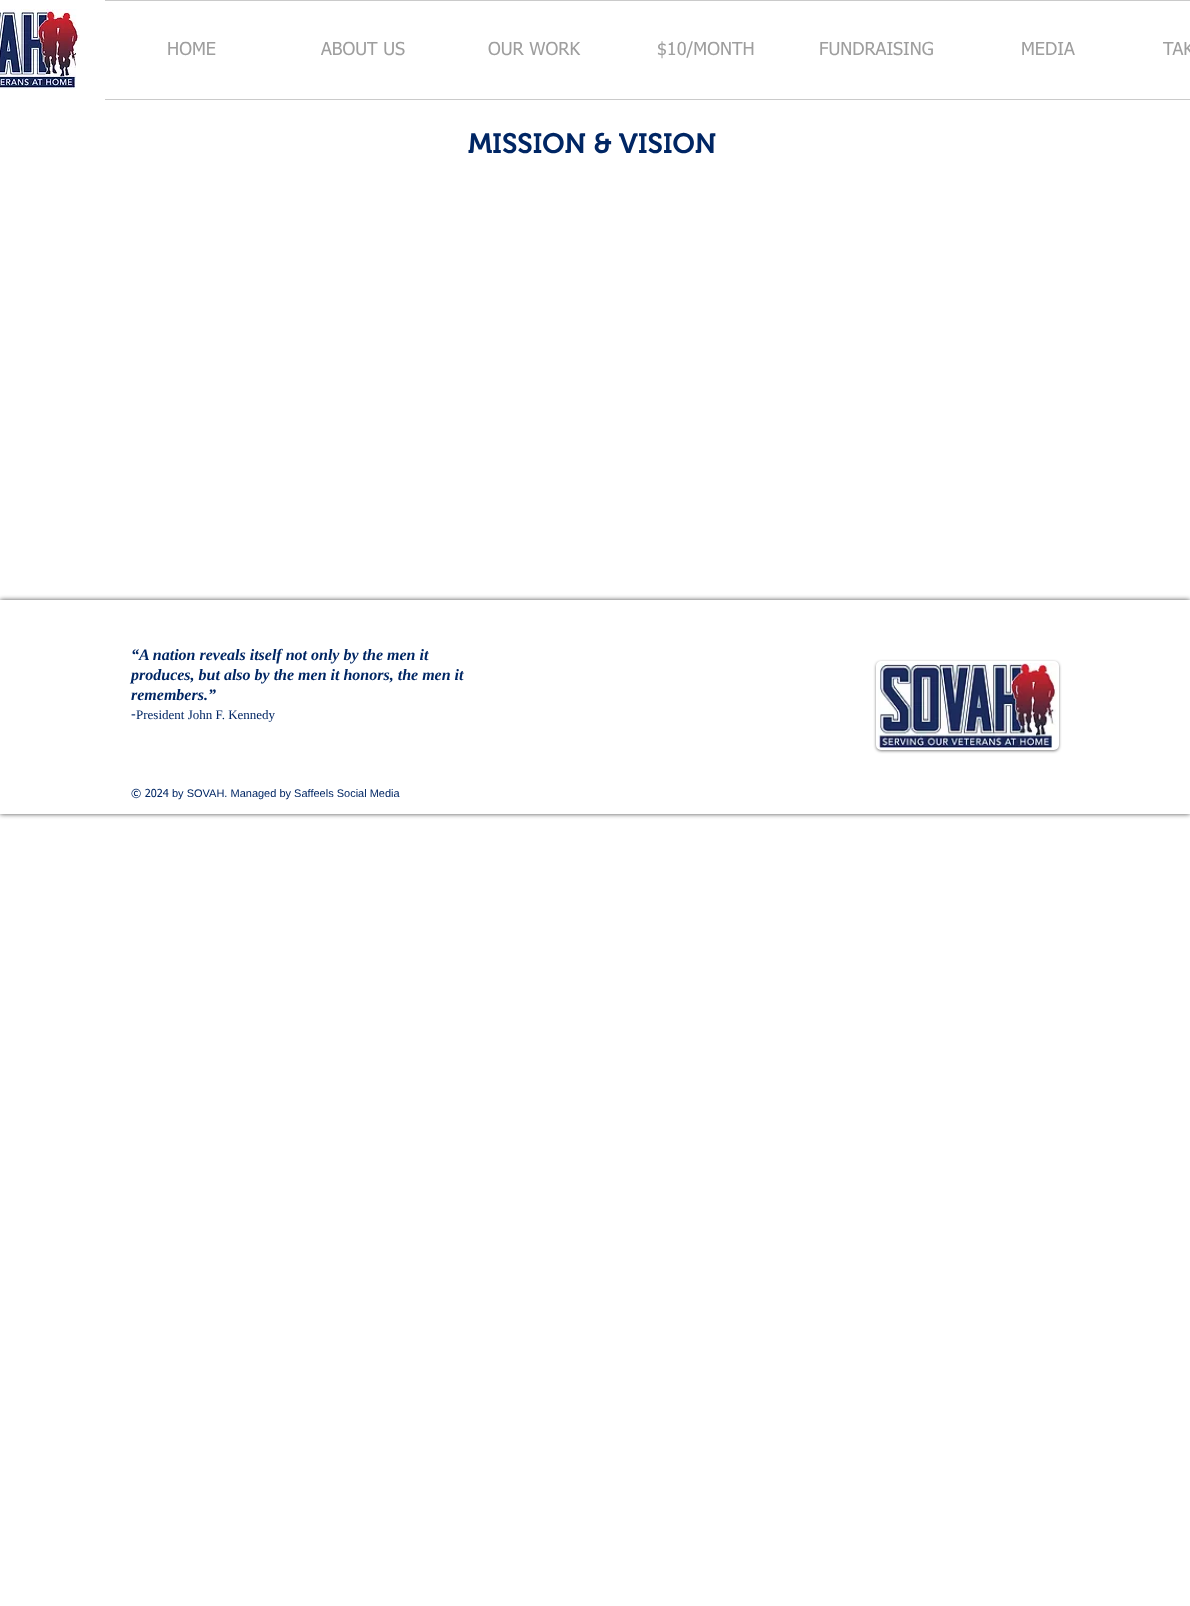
<?xml version="1.0" encoding="UTF-8"?>
<svg xmlns="http://www.w3.org/2000/svg" xmlns:xlink="http://www.w3.org/1999/xlink" width="1190" height="1606">
  <defs>
    <clipPath id="clip1"><path d="M 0 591 h 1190 v 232 h -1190 z m 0 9 h 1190 v 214 h -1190 z" clip-rule="evenodd" /></clipPath>
  </defs>
  <rect width="100%" height="100%" fill="#ffffff" />
  <image x="0" y="9" width="80" height="80" xlink:href="image1.png" />
  <rect x="105" width="1085" height="1" fill="#cacaca" />
  <rect x="105" y="99" width="1085" height="1" fill="#cacaca" />
  <g clip-path="url(#clip1)">
    <rect y="600" width="1190" height="214" fill="#000000" fill-opacity="0.7" filter="blur(2.5px)" />
  </g>
  <rect x="876" y="662" width="183" height="89" rx="5" fill="#000000" fill-opacity="0.5" filter="blur(1.5px)" />
  <rect x="877" y="662" width="181" height="87" rx="4" fill="#ffffff" stroke="#ffffff" stroke-width="2" />
  <image x="878" y="663" width="179" height="85" xlink:href="image2.png" />
  <text x="167" y="55" style="font-family: tahoma; font-size: 18px; fill: #9e9e9e">HOME</text>
  <text x="321" y="55" style="font-family: tahoma; font-size: 18px; fill: #9e9e9e">ABOUT US</text>
  <text x="488" y="55" style="font-family: tahoma; font-size: 18px; fill: #9e9e9e">OUR WORK</text>
  <text x="657" y="55" style="font-family: tahoma; font-size: 18px; fill: #9e9e9e">$10/MONTH</text>
  <text x="819" y="55" style="font-family: tahoma; font-size: 18px; fill: #9e9e9e">FUNDRAISING</text>
  <text x="1021" y="55" style="font-family: tahoma; font-size: 18px; fill: #9e9e9e">MEDIA</text>
  <text x="1163" y="55" style="font-family: tahoma; font-size: 18px; fill: #9e9e9e">TAK</text>
  <text x="468" y="153" style="font-family: 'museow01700'; font-size: 28px; font-weight: 600; fill: #002664">MISSION &amp; VISION</text>
  <text x="131" y="660" style="font-family: Liberation Serif; font-size: 16px; font-weight: bold; font-style: italic; fill: #002664">“A nation reveals itself not only by the men it</text>
  <text x="131" y="680" style="font-family: Liberation Serif; font-size: 16px; font-weight: bold; font-style: italic; fill: #002664">produces, but also by the men it honors, the men it</text>
  <text x="131" y="700" style="font-family: Liberation Serif; font-size: 16px; font-weight: bold; font-style: italic; fill: #002664">remembers.”</text>
  <text x="131" y="719" style="font-family: tahoma; font-size: 13px; fill: #002664">-</text>
  <text x="136" y="719" style="font-family: Liberation Serif; font-size: 13px; fill: #002664">President John F. Kennedy</text>
  <text x="131" y="797" style="font-family: tahoma; font-size: 11px; fill: #002664">© 2024</text>
  <text x="172" y="797" style="font-family: Liberation Sans; font-size: 11px; fill: #002664">by SOVAH. Managed by Saffeels Social Media</text>
</svg>
